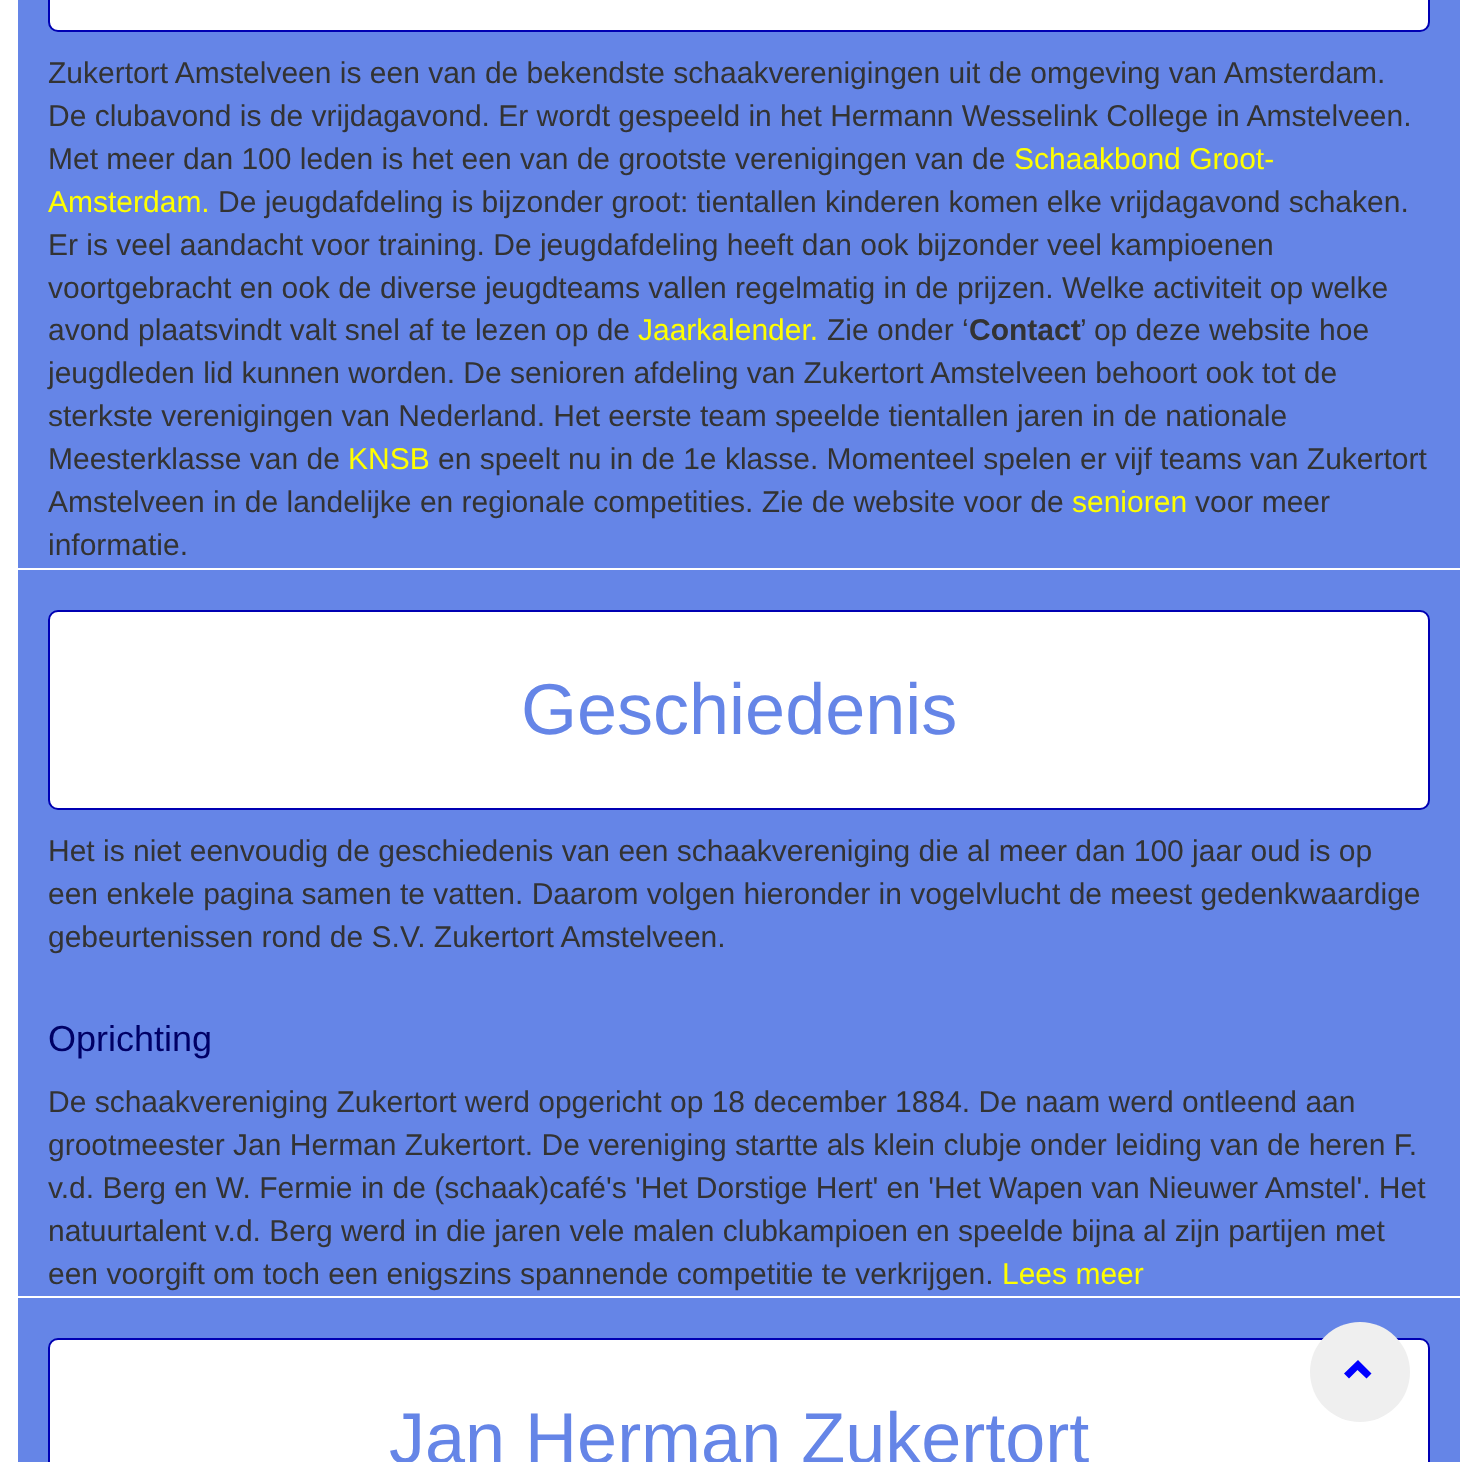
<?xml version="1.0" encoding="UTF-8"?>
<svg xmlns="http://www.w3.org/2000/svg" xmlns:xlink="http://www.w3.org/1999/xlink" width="1470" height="1462">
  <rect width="100%" height="100%" fill="#ffffff" />
  <rect x="18" width="1442" height="568" fill="#6585e7" />
  <rect x="49" y="-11" width="1380" height="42" rx="9" fill="#ffffff" stroke="#0000b3" stroke-width="2" />
  <rect x="18" y="570" width="1442" height="726" fill="#6585e7" />
  <rect x="49" y="611" width="1380" height="198" rx="9" fill="#ffffff" stroke="#0000b3" stroke-width="2" />
  <rect x="18" y="1298" width="1442" height="164" fill="#6585e7" />
  <rect x="49" y="1339" width="1380" height="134" rx="9" fill="#ffffff" stroke="#0000b3" stroke-width="2" />
  <circle cx="1360" cy="1372" r="50" fill="#efefef" />
  <path d="M 1371.5 1373.5 l -5 5 l -9 -8.5 l -8.5 8.5 l -5 -5 l 14 -13.5 z" fill="#0000ff" />
  <text x="48" y="83" style="font-family: Liberation Sans; font-size: 30px; fill: #333333">Zukertort Amstelveen is een van de bekendste schaakverenigingen uit de omgeving van Amsterdam.</text>
  <text x="48" y="126" style="font-family: Liberation Sans; font-size: 30px; fill: #333333">De clubavond is de vrijdagavond. Er wordt gespeeld in het Hermann Wesselink College in Amstelveen.</text>
  <text x="48" y="169" style="font-family: Liberation Sans; font-size: 30px; fill: #333333">Met meer dan 100 leden is het een van de grootste verenigingen van de</text>
  <text x="1014" y="169" style="font-family: Liberation Sans; font-size: 30px; fill: #ffff00">Schaakbond Groot-</text>
  <text x="48" y="212" style="font-family: Liberation Sans; font-size: 30px; fill: #ffff00">Amsterdam.</text>
  <text x="218" y="212" style="font-family: Liberation Sans; font-size: 30px; fill: #333333">De jeugdafdeling is bijzonder groot: tientallen kinderen komen elke vrijdagavond schaken.</text>
  <text x="48" y="255" style="font-family: Liberation Sans; font-size: 30px; fill: #333333">Er is veel aandacht voor training. De jeugdafdeling heeft dan ook bijzonder veel kampioenen</text>
  <text x="48" y="298" style="font-family: Liberation Sans; font-size: 30px; fill: #333333">voortgebracht en ook de diverse jeugdteams vallen regelmatig in de prijzen. Welke activiteit op welke</text>
  <text x="48" y="340" style="font-family: Liberation Sans; font-size: 30px; fill: #333333">avond plaatsvindt valt snel af te lezen op de</text>
  <text x="638" y="340" style="font-family: Liberation Sans; font-size: 30px; fill: #ffff00">Jaarkalender.</text>
  <text x="827" y="340" style="font-family: Liberation Sans; font-size: 30px; fill: #333333">Zie onder ‘</text>
  <text x="969" y="340" style="font-family: Liberation Sans; font-size: 30px; font-weight: bold; fill: #333333">Contact</text>
  <text x="1080" y="340" style="font-family: Liberation Sans; font-size: 30px; fill: #333333">’ op deze website hoe</text>
  <text x="48" y="383" style="font-family: Liberation Sans; font-size: 30px; fill: #333333">jeugdleden lid kunnen worden. De senioren afdeling van Zukertort Amstelveen behoort ook tot de</text>
  <text x="48" y="426" style="font-family: Liberation Sans; font-size: 30px; fill: #333333">sterkste verenigingen van Nederland. Het eerste team speelde tientallen jaren in de nationale</text>
  <text x="48" y="469" style="font-family: Liberation Sans; font-size: 30px; fill: #333333">Meesterklasse van de</text>
  <text x="348" y="469" style="font-family: Liberation Sans; font-size: 30px; fill: #ffff00">KNSB</text>
  <text x="438" y="469" style="font-family: Liberation Sans; font-size: 30px; fill: #333333">en speelt nu in de 1e klasse. Momenteel spelen er vijf teams van Zukertort</text>
  <text x="48" y="512" style="font-family: Liberation Sans; font-size: 30px; fill: #333333">Amstelveen in de landelijke en regionale competities. Zie de website voor de</text>
  <text x="1072" y="512" style="font-family: Liberation Sans; font-size: 30px; fill: #ffff00">senioren</text>
  <text x="1195" y="512" style="font-family: Liberation Sans; font-size: 30px; fill: #333333">voor meer</text>
  <text x="48" y="555" style="font-family: Liberation Sans; font-size: 30px; fill: #333333">informatie.</text>
  <text x="521" y="734" style="font-family: Liberation Sans; font-size: 72px; fill: #6585e7">Geschiedenis</text>
  <text x="48" y="861" style="font-family: Liberation Sans; font-size: 30px; fill: #333333">Het is niet eenvoudig de geschiedenis van een schaakvereniging die al meer dan 100 jaar oud is op</text>
  <text x="48" y="904" style="font-family: Liberation Sans; font-size: 30px; fill: #333333">een enkele pagina samen te vatten. Daarom volgen hieronder in vogelvlucht de meest gedenkwaardige</text>
  <text x="48" y="947" style="font-family: Liberation Sans; font-size: 30px; fill: #333333">gebeurtenissen rond de S.V. Zukertort Amstelveen.</text>
  <text x="48" y="1051" style="font-family: Liberation Sans; font-size: 36px; fill: #000066">Oprichting</text>
  <text x="48" y="1112" style="font-family: Liberation Sans; font-size: 30px; fill: #333333">De schaakvereniging Zukertort werd opgericht op 18 december 1884. De naam werd ontleend aan</text>
  <text x="48" y="1155" style="font-family: Liberation Sans; font-size: 30px; fill: #333333">grootmeester Jan Herman Zukertort. De vereniging startte als klein clubje onder leiding van de heren F.</text>
  <text x="48" y="1198" style="font-family: Liberation Sans; font-size: 30px; fill: #333333">v.d. Berg en W. Fermie in de (schaak)café's 'Het Dorstige Hert' en 'Het Wapen van Nieuwer Amstel'. Het</text>
  <text x="48" y="1241" style="font-family: Liberation Sans; font-size: 30px; fill: #333333">natuurtalent v.d. Berg werd in die jaren vele malen clubkampioen en speelde bijna al zijn partijen met</text>
  <text x="48" y="1284" style="font-family: Liberation Sans; font-size: 30px; fill: #333333">een voorgift om toch een enigszins spannende competitie te verkrijgen.</text>
  <text x="1002" y="1284" style="font-family: Liberation Sans; font-size: 30px; fill: #ffff00">Lees meer</text>
  <text x="389" y="1463" style="font-family: Liberation Sans; font-size: 72px; fill: #6585e7">Jan Herman Zukertort</text>
</svg>
